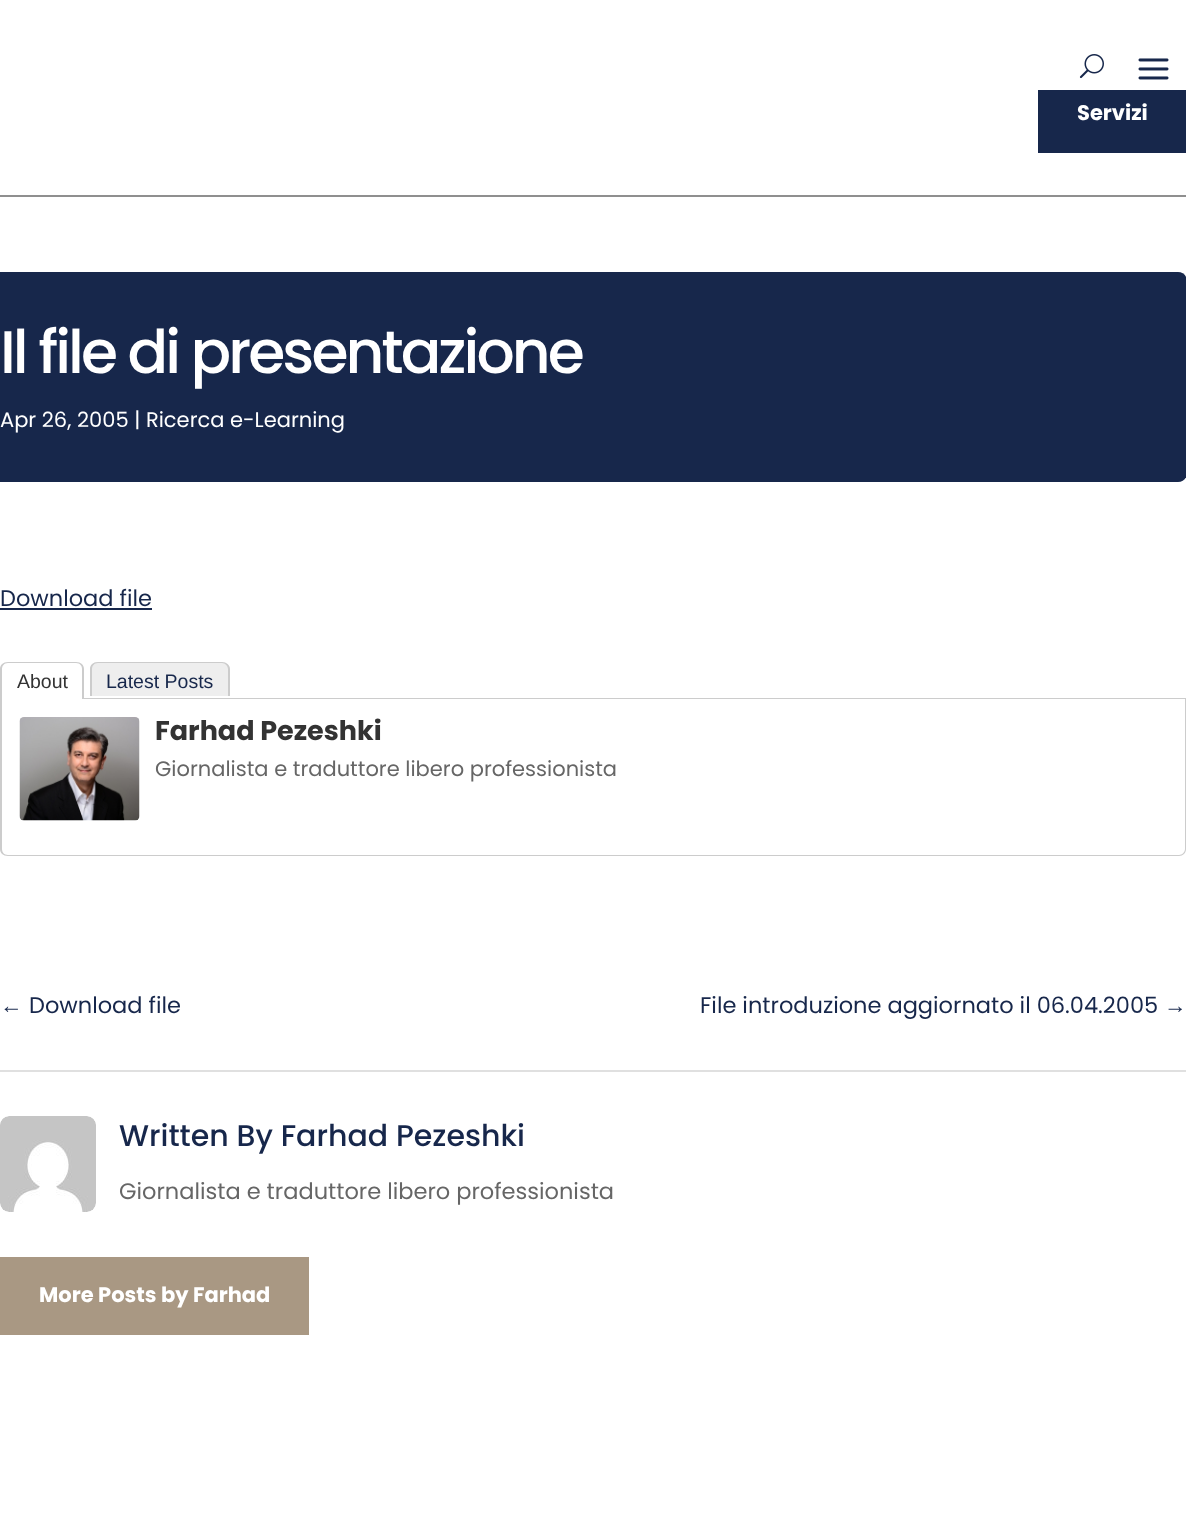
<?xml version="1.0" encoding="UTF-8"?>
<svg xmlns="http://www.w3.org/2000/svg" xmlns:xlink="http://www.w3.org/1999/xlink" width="1186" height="1521">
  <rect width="100%" height="100%" fill="#ffffff" />
  <rect y="195" width="1186" height="2" fill="#8f8f8f" />
  <image x="1079" y="54" width="25" height="25" xlink:href="image1.png" />
  <image x="1138" y="58" width="31" height="22" xlink:href="image2.png" />
  <rect x="1038" y="90" width="148" height="63" fill="#17274b" />
  <path d="M 0 272 h 1178 c 5 0 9 4 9 9 v 192 c 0 5 -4 9 -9 9 h -1178 z" fill="#17274b" />
  <rect y="608" width="152" height="2" fill="#17274b" />
  <rect x="84" y="698" width="1102" height="1" fill="#cccccc" />
  <path d="M 8 662 h 68 c 5 0 8 3 8 7 v 30 h -84 v -30 c 0 -4 3 -7 8 -7 z m 0 1 h 68 c 4 0 6 3 6 6 v 30 h -80 v -30 c 0 -3 2 -6 6 -6 z" fill="#cccccc" fill-rule="evenodd" />
  <path d="M 98 662 h 124 c 4.5 0 8 3.5 8 8 v 26 h -140 v -26 c 0 -4.5 3.5 -8 8 -8 z" fill="#eeeeee" />
  <path d="M 98 662 h 124 c 4 0 8 3 8 7 v 27 h -140 v -27 c 0 -4 3 -7 8 -7 z m 0 1 h 124 c 3 0 6 3 6 6 v 27 h -136 v -27 c 0 -3 2 -6 6 -6 z" fill="#cccccc" fill-rule="evenodd" />
  <path d="M 0 699 h 1186 v 150 c 0 4 -3 7 -7 7 h -1171 c -5 0 -8 -3 -8 -7 z m 2 0 h 1183 v 150 c 0 3 -3 6 -6 6 h -1171 c -4 0 -6 -3 -6 -6 z" fill="#cccccc" fill-rule="evenodd" />
  <image x="19" y="717" width="121" height="104" xlink:href="image3.png" />
  <rect y="1070" width="1186" height="2" fill="#e0e0e0" />
  <image x="0" y="1116" width="96" height="96" xlink:href="image4.png" />
  <rect y="1257" width="309" height="78" fill="#a99883" />
  <text x="1077" y="120" style="font-family: Poppins; font-size: 21px; font-weight: bold; fill: #ffffff">Servizi</text>
  <text x="0" y="373" style="font-family: Poppins; font-size: 60px; font-weight: 500; letter-spacing: -3px; fill: #ffffff">Il file di presentazione</text>
  <text x="0" y="427" style="font-family: Poppins; font-size: 21px; fill: #ffffff">Apr 26, 2005 | Ricerca e-Learning</text>
  <text x="0" y="606" style="font-family: Poppins; font-size: 22.5px; fill: #17274b">Download file</text>
  <text x="17" y="688" style="font-family: Liberation Sans; font-size: 19.5px; fill: #333333">About</text>
  <text x="106" y="688" style="font-family: Liberation Sans; font-size: 19.5px; fill: #17274b">Latest Posts</text>
  <text x="155" y="740" style="font-family: Poppins; font-size: 27px; font-weight: bold; fill: #333333">Farhad Pezeshki</text>
  <text x="155" y="776" style="font-family: Poppins; font-size: 21px; fill: #666666">Giornalista e traduttore libero professionista</text>
  <text x="0" y="1013" style="font-family: Liberation Sans; font-size: 22.5px; fill: #17274b">←</text>
  <text x="29" y="1013" style="font-family: Poppins; font-size: 22.5px; fill: #17274b">Download file</text>
  <text x="700" y="1013" style="font-family: Poppins; font-size: 22.5px; fill: #17274b">File introduzione aggiornato il 06.04.2005</text>
  <text x="1164" y="1013" style="font-family: Liberation Sans; font-size: 22.5px; fill: #17274b">→</text>
  <text x="119" y="1146" style="font-family: Poppins; font-size: 30px; font-weight: 500; fill: #17274b">Written By Farhad Pezeshki</text>
  <text x="119" y="1199" style="font-family: Poppins; font-size: 22.5px; fill: #666666">Giornalista e traduttore libero professionista</text>
  <text x="39" y="1302" style="font-family: Poppins; font-size: 21px; font-weight: bold; fill: #ffffff">More Posts by Farhad</text>
</svg>
